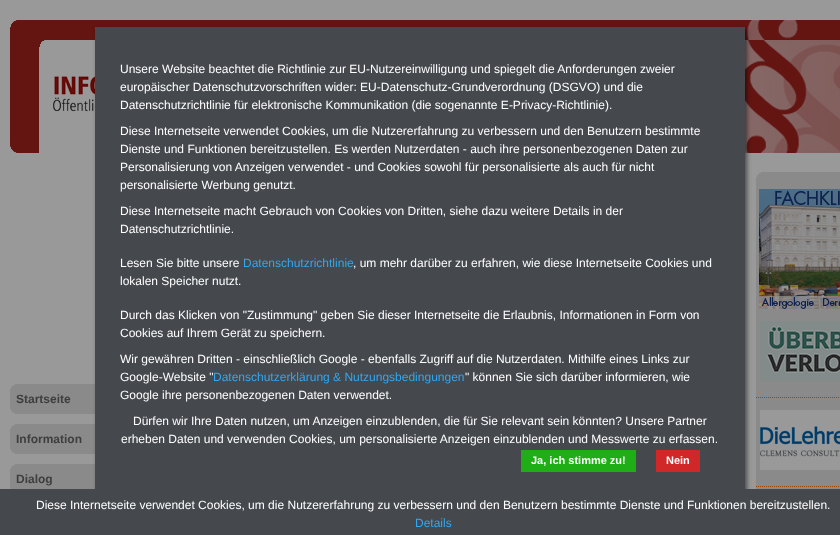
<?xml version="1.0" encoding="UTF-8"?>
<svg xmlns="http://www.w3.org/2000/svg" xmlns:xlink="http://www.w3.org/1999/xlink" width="840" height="535">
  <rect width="100%" height="100%" fill="#999999" />
  <image x="10" y="20" width="830" height="133" xlink:href="image1.png" />
  <rect x="15" y="384" width="80" height="1" fill="#8a8a8a" />
  <rect x="13" y="385" width="82" height="1" fill="#8a8a8a" />
  <rect x="12" y="386" width="83" height="1" fill="#8a8a8a" />
  <rect x="11" y="387" width="84" height="2" fill="#8a8a8a" />
  <rect x="10" y="389" width="85" height="20" fill="#8a8a8a" />
  <rect x="11" y="409" width="84" height="2" fill="#8a8a8a" />
  <rect x="12" y="411" width="83" height="1" fill="#8a8a8a" />
  <rect x="13" y="412" width="82" height="1" fill="#8a8a8a" />
  <rect x="15" y="413" width="80" height="1" fill="#8a8a8a" />
  <rect x="15" y="424" width="80" height="1" fill="#8a8a8a" />
  <rect x="13" y="425" width="82" height="1" fill="#8a8a8a" />
  <rect x="12" y="426" width="83" height="1" fill="#8a8a8a" />
  <rect x="11" y="427" width="84" height="2" fill="#8a8a8a" />
  <rect x="10" y="429" width="85" height="20" fill="#8a8a8a" />
  <rect x="11" y="449" width="84" height="2" fill="#8a8a8a" />
  <rect x="12" y="451" width="83" height="1" fill="#8a8a8a" />
  <rect x="13" y="452" width="82" height="1" fill="#8a8a8a" />
  <rect x="15" y="453" width="80" height="1" fill="#8a8a8a" />
  <rect x="15" y="464" width="80" height="1" fill="#8a8a8a" />
  <rect x="13" y="465" width="82" height="1" fill="#8a8a8a" />
  <rect x="12" y="466" width="83" height="1" fill="#8a8a8a" />
  <rect x="11" y="467" width="84" height="2" fill="#8a8a8a" />
  <rect x="10" y="469" width="85" height="20" fill="#8a8a8a" />
  <rect x="97" y="29" width="650" height="470" fill="#000000" fill-opacity="0.5" filter="blur(2px)" />
  <rect x="95" y="27" width="650" height="462" fill="#45484d" />
  <rect x="521" y="450" width="115" height="22" fill="#1fae16" />
  <rect x="656" y="450" width="44" height="22" fill="#d02828" />
  <rect y="489" width="840" height="46" fill="#45484d" />
  <rect x="756" y="177" width="84" height="312" fill="#8a8a8a" />
  <rect x="761" y="172" width="79" height="1" fill="#8a8a8a" />
  <rect x="759" y="173" width="81" height="1" fill="#8a8a8a" />
  <rect x="758" y="174" width="82" height="1" fill="#8a8a8a" />
  <rect x="757" y="175" width="83" height="2" fill="#8a8a8a" />
  <image x="759" y="189" width="81" height="120" xlink:href="image2.png" />
  <path d="M 756 397.5 h 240" fill="none" stroke="#994400" stroke-dasharray="1 1" />
  <image x="760" y="321" width="80" height="60" xlink:href="image3.png" />
  <path d="M 756 486.5 h 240" fill="none" stroke="#994400" stroke-dasharray="1 1" />
  <image x="760" y="410" width="80" height="60" xlink:href="image4.png" />
  <text x="120" y="73" style="font-family: Liberation Sans; font-size: 12px; fill: #ffffff">Unsere Website beachtet die Richtlinie zur EU-Nutzereinwilligung und spiegelt die Anforderungen zweier</text>
  <text x="120" y="91" style="font-family: Liberation Sans; font-size: 12px; fill: #ffffff">europäischer Datenschutzvorschriften wider: EU-Datenschutz-Grundverordnung (DSGVO) und die</text>
  <text x="120" y="109" style="font-family: Liberation Sans; font-size: 12px; fill: #ffffff">Datenschutzrichtlinie für elektronische Kommunikation (die sogenannte E-Privacy-Richtlinie).</text>
  <text x="120" y="135" style="font-family: Liberation Sans; font-size: 12px; fill: #ffffff">Diese Internetseite verwendet Cookies, um die Nutzererfahrung zu verbessern und den Benutzern bestimmte</text>
  <text x="120" y="153" style="font-family: Liberation Sans; font-size: 12px; fill: #ffffff">Dienste und Funktionen bereitzustellen. Es werden Nutzerdaten - auch ihre personenbezogenen Daten zur</text>
  <text x="120" y="171" style="font-family: Liberation Sans; font-size: 12px; fill: #ffffff">Personalisierung von Anzeigen verwendet - und Cookies sowohl für personalisierte als auch für nicht</text>
  <text x="120" y="189" style="font-family: Liberation Sans; font-size: 12px; fill: #ffffff">personalisierte Werbung genutzt.</text>
  <text x="120" y="215" style="font-family: Liberation Sans; font-size: 12px; fill: #ffffff">Diese Internetseite macht Gebrauch von Cookies von Dritten, siehe dazu weitere Details in der</text>
  <text x="120" y="233" style="font-family: Liberation Sans; font-size: 12px; fill: #ffffff">Datenschutzrichtlinie.</text>
  <text x="120" y="267" style="font-family: Liberation Sans; font-size: 12px; fill: #ffffff">Lesen Sie bitte unsere</text>
  <text x="243" y="267" style="font-family: Liberation Sans; font-size: 12px; fill: #31a8f0">Datenschutzrichtlinie</text>
  <text x="353" y="267" style="font-family: Liberation Sans; font-size: 12px; fill: #ffffff">, um mehr darüber zu erfahren, wie diese Internetseite Cookies und</text>
  <text x="120" y="285" style="font-family: Liberation Sans; font-size: 12px; fill: #ffffff">lokalen Speicher nutzt.</text>
  <text x="120" y="319" style="font-family: Liberation Sans; font-size: 12px; fill: #ffffff">Durch das Klicken von "Zustimmung" geben Sie dieser Internetseite die Erlaubnis, Informationen in Form von</text>
  <text x="120" y="337" style="font-family: Liberation Sans; font-size: 12px; fill: #ffffff">Cookies auf Ihrem Gerät zu speichern.</text>
  <text x="120" y="363" style="font-family: Liberation Sans; font-size: 12px; fill: #ffffff">Wir gewähren Dritten - einschließlich Google - ebenfalls Zugriff auf die Nutzerdaten. Mithilfe eines Links zur</text>
  <text x="120" y="381" style="font-family: Liberation Sans; font-size: 12px; fill: #ffffff">Google-Website "</text>
  <text x="213" y="381" style="font-family: Liberation Sans; font-size: 12px; fill: #31a8f0">Datenschutzerklärung &amp; Nutzungsbedingungen</text>
  <text x="465" y="381" style="font-family: Liberation Sans; font-size: 12px; fill: #ffffff">" können Sie sich darüber informieren, wie</text>
  <text x="120" y="399" style="font-family: Liberation Sans; font-size: 12px; fill: #ffffff">Google ihre personenbezogenen Daten verwendet.</text>
  <text x="133" y="425" style="font-family: Liberation Sans; font-size: 12px; fill: #ffffff">Dürfen wir Ihre Daten nutzen, um Anzeigen einzublenden, die für Sie relevant sein könnten? Unsere Partner</text>
  <text x="121" y="443" style="font-family: Liberation Sans; font-size: 12px; fill: #ffffff">erheben Daten und verwenden Cookies, um personalisierte Anzeigen einzublenden und Messwerte zu erfassen.</text>
  <text x="531" y="464" style="font-family: Liberation Sans; font-size: 11px; font-weight: bold; fill: #ffffff">Ja, ich stimme zu!</text>
  <text x="666" y="464" style="font-family: Liberation Sans; font-size: 11px; font-weight: bold; fill: #ffffff">Nein</text>
  <text x="36" y="509" style="font-family: Liberation Sans; font-size: 12px; fill: #ffffff">Diese Internetseite verwendet Cookies, um die Nutzererfahrung zu verbessern und den Benutzern bestimmte Dienste und Funktionen bereitzustellen.</text>
  <text x="415" y="527" style="font-family: Liberation Sans; font-size: 12px; fill: #31a8f0">Details</text>
  <text x="16" y="403" style="font-family: Liberation Sans; font-size: 12px; font-weight: bold; fill: #3e3e3e">Startseite</text>
  <text x="16" y="443" style="font-family: Liberation Sans; font-size: 12px; font-weight: bold; fill: #3e3e3e">Information</text>
  <text x="16" y="483" style="font-family: Liberation Sans; font-size: 12px; font-weight: bold; fill: #3e3e3e">Dialog</text>
</svg>
